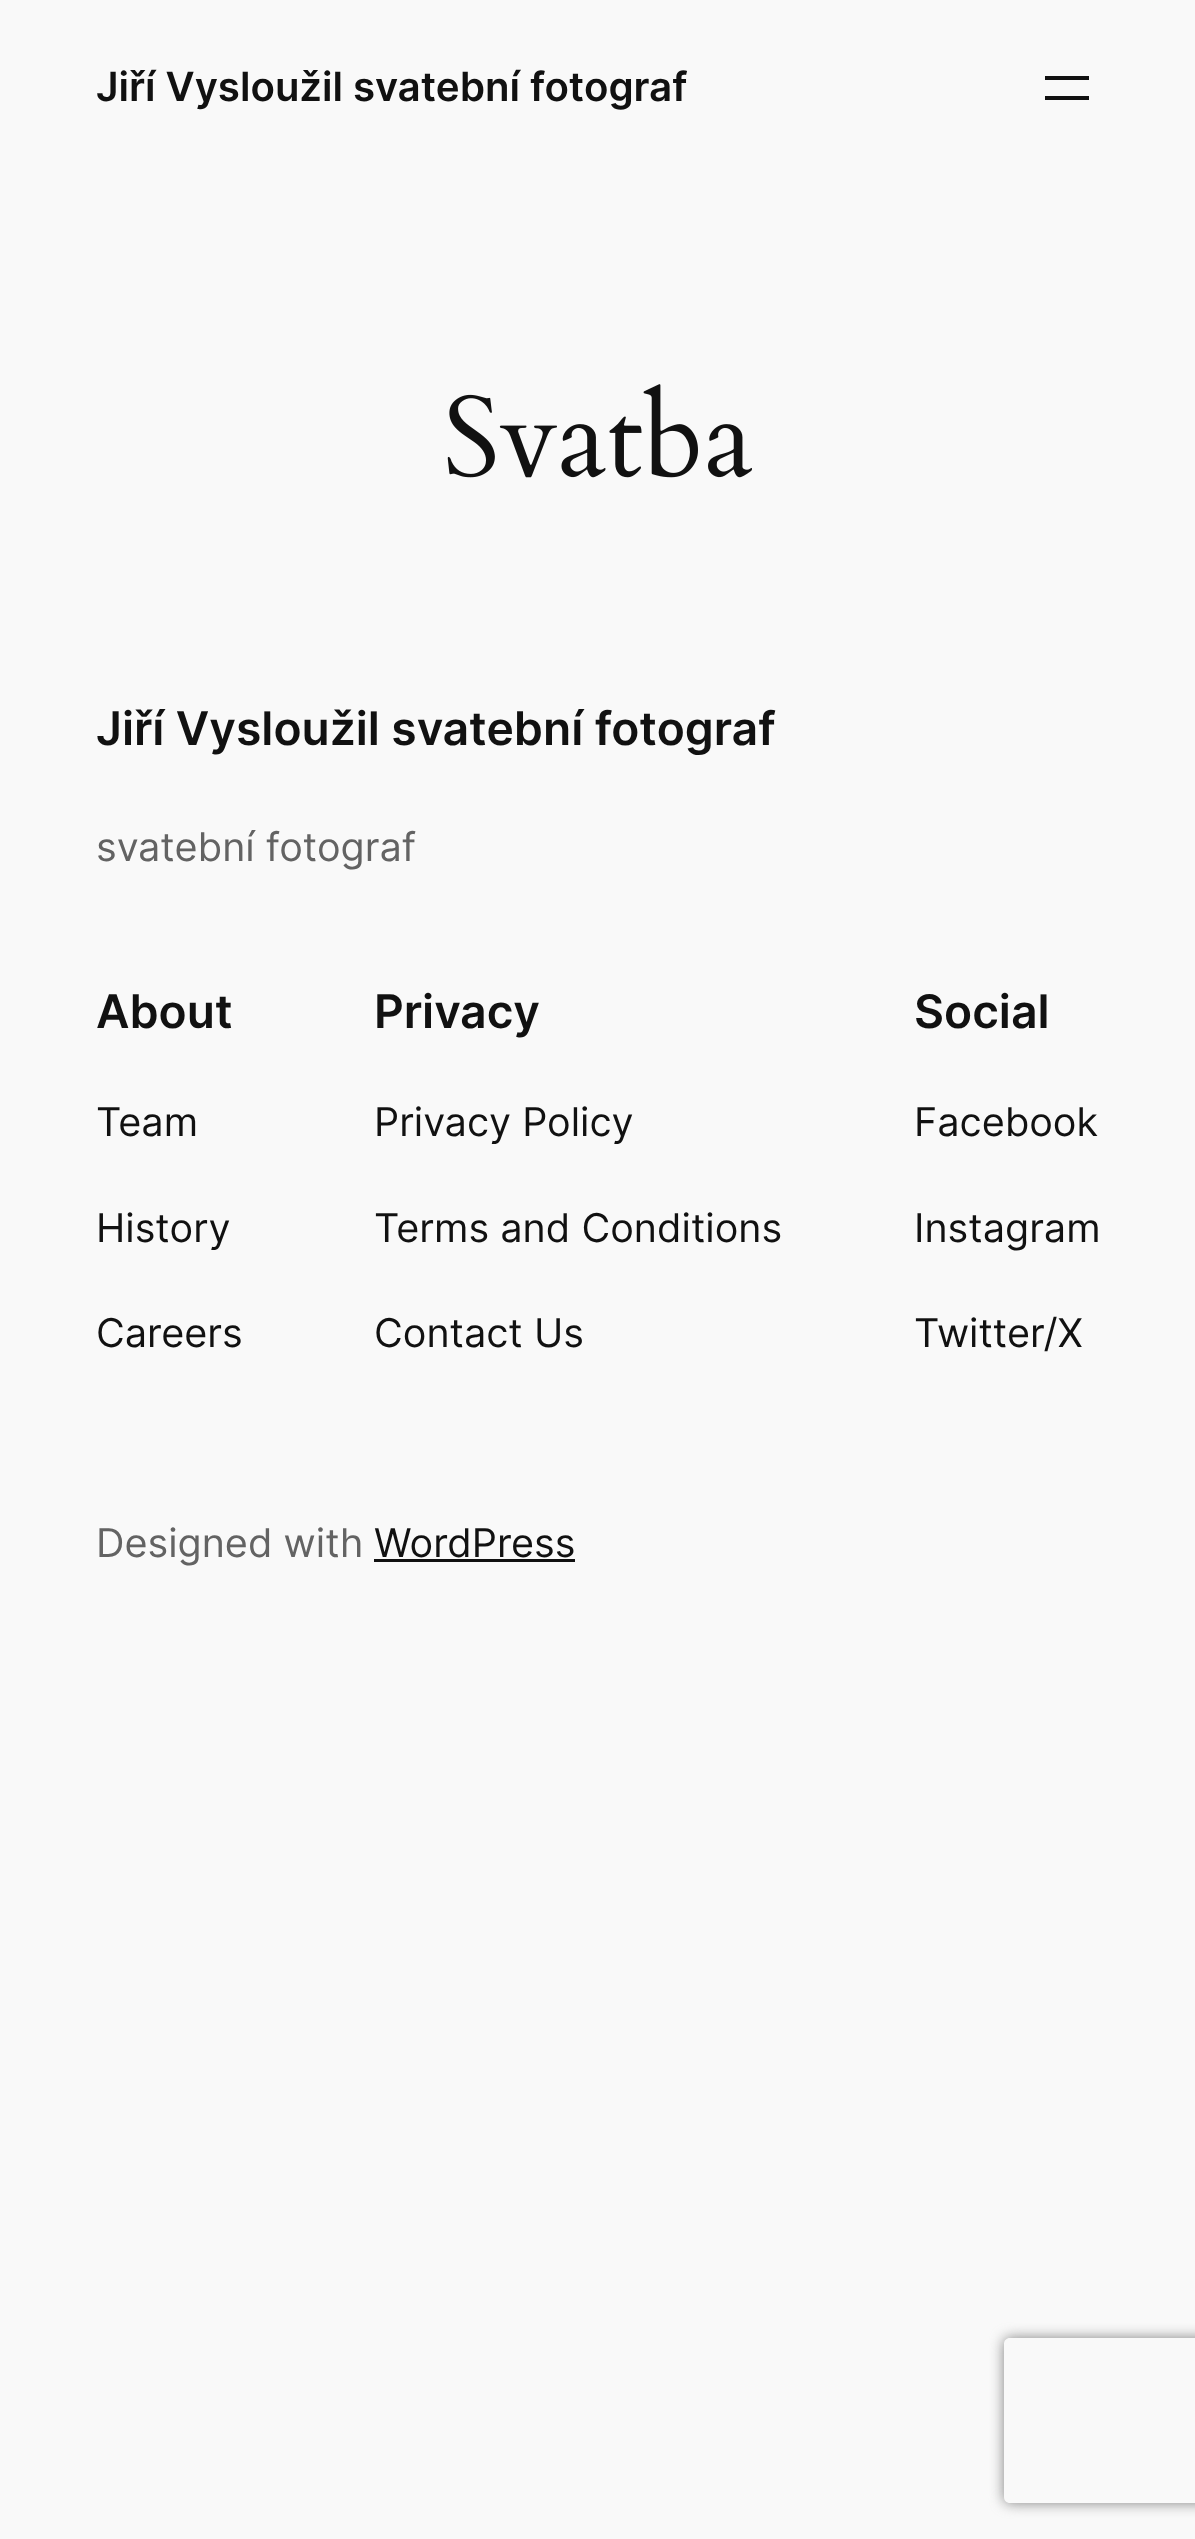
<?xml version="1.0" encoding="UTF-8"?>
<svg xmlns="http://www.w3.org/2000/svg" xmlns:xlink="http://www.w3.org/1999/xlink" width="1195" height="2539">
  <defs>
    <clipPath id="clip1"><path d="M 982 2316 h 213 v 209 h -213 z m 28 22 h 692 c 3.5 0 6 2.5 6 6 v 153 c 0 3.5 -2.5 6 -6 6 h -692 c -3.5 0 -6 -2.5 -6 -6 v -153 c 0 -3.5 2.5 -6 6 -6 z" clip-rule="evenodd" /></clipPath>
  </defs>
  <rect width="100%" height="100%" fill="#f9f9f9" />
  <rect x="1045" y="76" width="44" height="4" fill="#111111" />
  <rect x="1045" y="96" width="44" height="4" fill="#111111" />
  <image x="447" y="384" width="305" height="94" xlink:href="image1.png" />
  <rect x="374" y="1559" width="201" height="3" fill="#111111" />
  <g clip-path="url(#clip1)">
    <rect x="1004" y="2338" width="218" height="165" rx="6" fill="#808080" filter="blur(7px)" />
  </g>
  <text x="96" y="101" style="font-family: Inter; font-size: 40.25px; font-weight: 600; fill: #111111">Jiří Vysloužil svatební fotograf</text>
  <text x="96" y="745" style="font-family: Inter; font-size: 46.25px; font-weight: 600; fill: #111111">Jiří Vysloužil svatební fotograf</text>
  <text x="96" y="861" style="font-family: Inter; font-size: 39.6px; fill: #636363">svatební fotograf</text>
  <text x="96" y="1028" style="font-family: Inter; font-size: 46.25px; font-weight: 600; fill: #111111">About</text>
  <text x="96" y="1136" style="font-family: Inter; font-size: 39.6px; fill: #111111">Team</text>
  <text x="96" y="1242" style="font-family: Inter; font-size: 39.6px; fill: #111111">History</text>
  <text x="96" y="1347" style="font-family: Inter; font-size: 39.6px; fill: #111111">Careers</text>
  <text x="374" y="1028" style="font-family: Inter; font-size: 46.25px; font-weight: 600; fill: #111111">Privacy</text>
  <text x="374" y="1136" style="font-family: Inter; font-size: 39.6px; fill: #111111">Privacy Policy</text>
  <text x="374" y="1242" style="font-family: Inter; font-size: 39.6px; fill: #111111">Terms and Conditions</text>
  <text x="374" y="1347" style="font-family: Inter; font-size: 39.6px; fill: #111111">Contact Us</text>
  <text x="914" y="1028" style="font-family: Inter; font-size: 46.25px; font-weight: 600; fill: #111111">Social</text>
  <text x="914" y="1136" style="font-family: Inter; font-size: 39.6px; fill: #111111">Facebook</text>
  <text x="914" y="1242" style="font-family: Inter; font-size: 39.6px; fill: #111111">Instagram</text>
  <text x="914" y="1347" style="font-family: Inter; font-size: 39.6px; fill: #111111">Twitter/X</text>
  <text x="96" y="1557" style="font-family: Inter; font-size: 39.6px; fill: #636363">Designed with</text>
  <text x="374" y="1557" style="font-family: Inter; font-size: 39.6px; fill: #111111">WordPress</text>
</svg>
